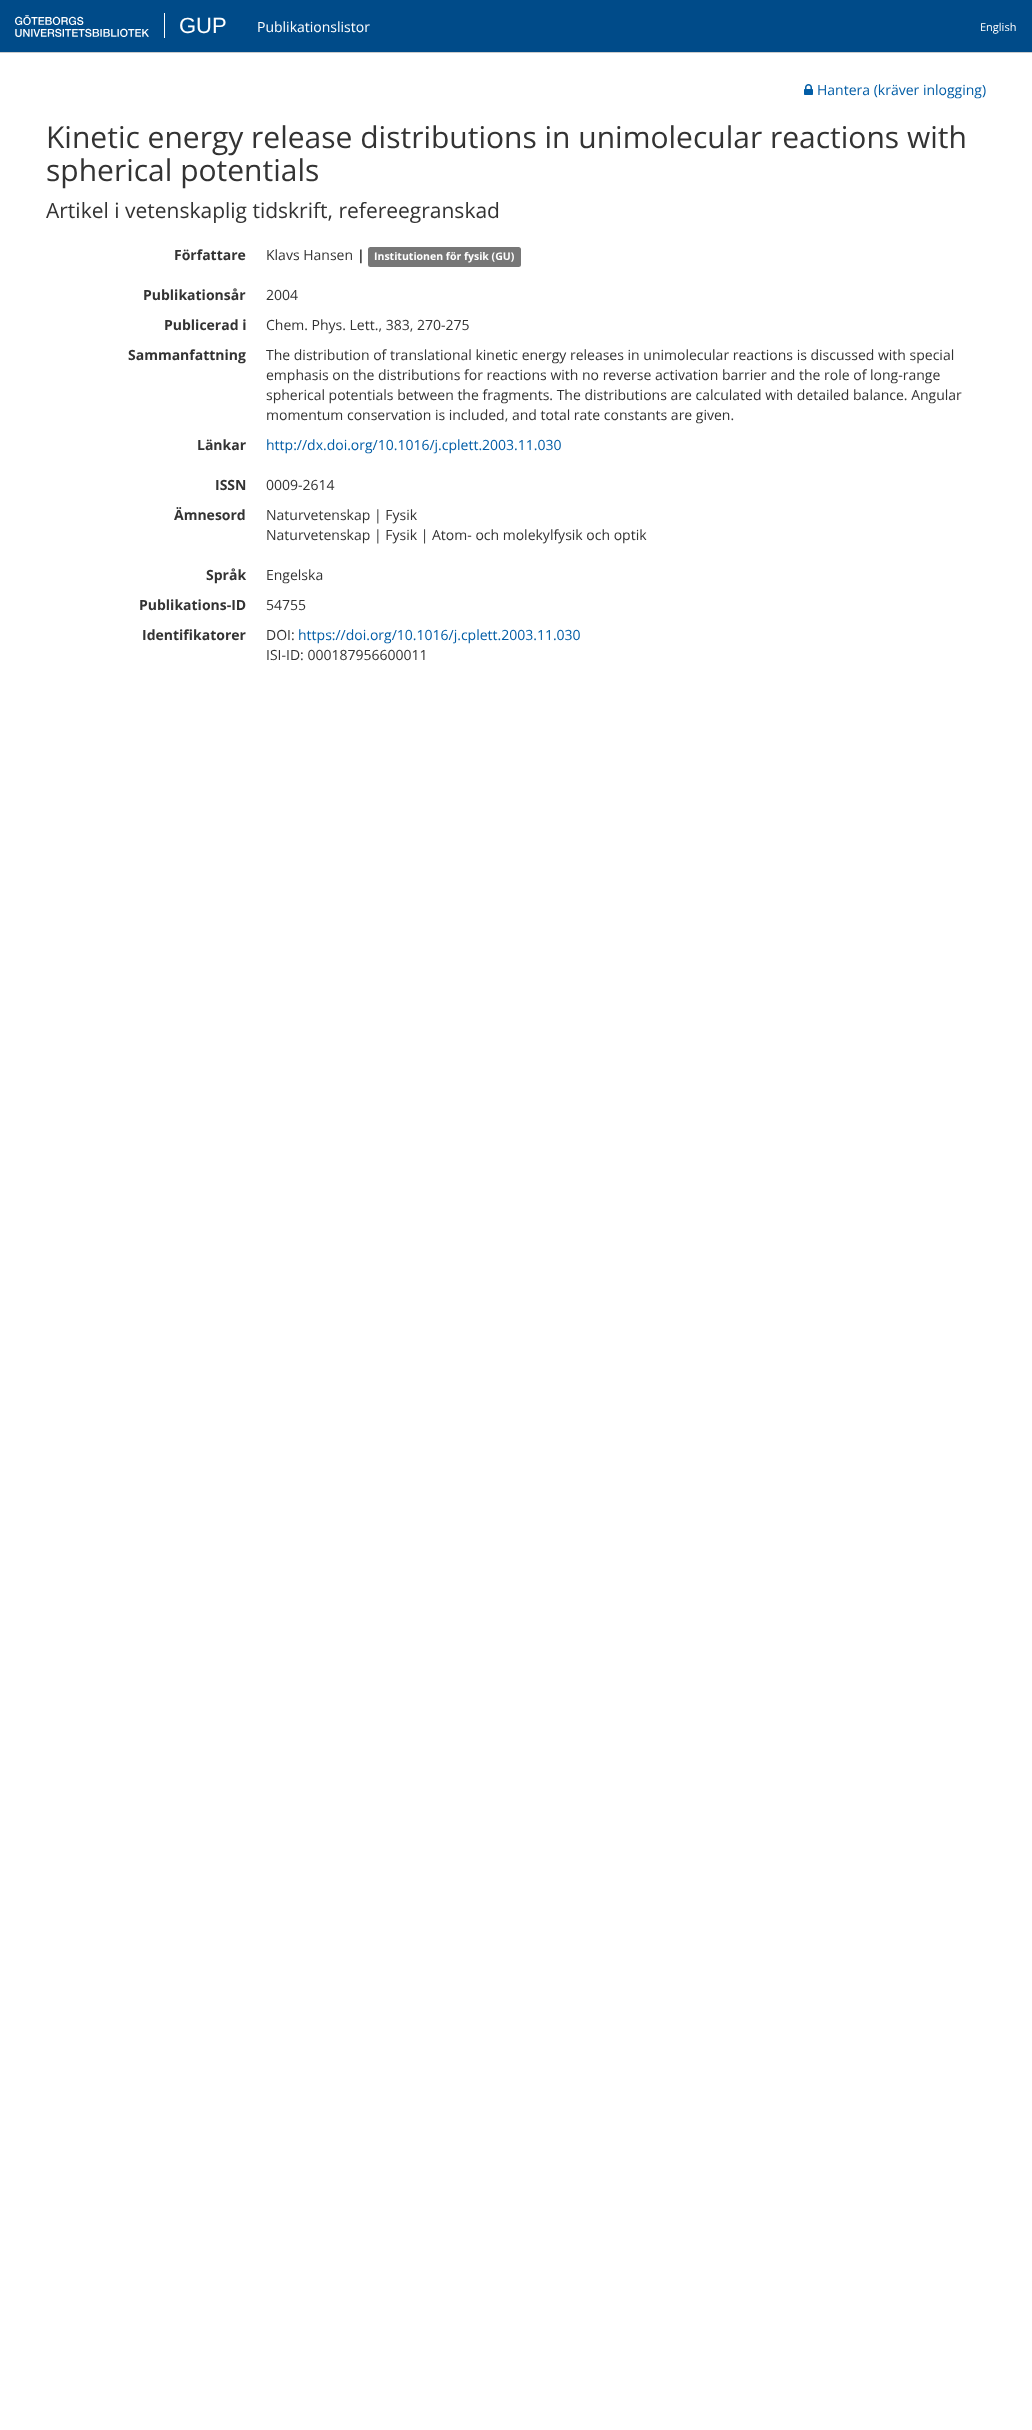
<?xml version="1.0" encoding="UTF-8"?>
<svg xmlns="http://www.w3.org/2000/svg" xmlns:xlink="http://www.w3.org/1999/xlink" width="1032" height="2430">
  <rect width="100%" height="100%" fill="#ffffff" />
  <rect width="1032" height="52" fill="#004b89" />
  <rect y="52" width="1032" height="1" fill="#cccccc" />
  <image x="15" y="15" width="134" height="22" xlink:href="image1.png" />
  <rect x="164" y="13" width="1" height="25" fill="#ffffff" />
  <image x="804" y="84" width="9" height="11" xlink:href="image2.png" />
  <rect x="368" y="247" width="153" height="20" rx="2.5" fill="#777777" />
  <text x="179" y="33" style="font-family: Liberation Sans; font-size: 22px; fill: #ffffff">GUP</text>
  <text x="257" y="32" style="font-family: Open Sans; font-size: 14px; fill: #ffffff">Publikationslistor</text>
  <text x="980" y="31" style="font-family: Open Sans; font-size: 11px; fill: #ffffff">English</text>
  <text x="817" y="95" style="font-family: Open Sans; font-size: 14px; fill: #025da6">Hantera (kräver inlogging)</text>
  <text x="46" y="148" style="font-family: Open Sans; font-size: 30px; fill: #333333">Kinetic energy release distributions in unimolecular reactions with</text>
  <text x="46" y="181" style="font-family: Open Sans; font-size: 30px; fill: #333333">spherical potentials</text>
  <text x="46" y="218" style="font-family: Open Sans; font-size: 21px; fill: #333333">Artikel i vetenskaplig tidskrift, refereegranskad</text>
  <text x="174" y="260" style="font-family: Open Sans; font-size: 14px; font-weight: bold; fill: #333333">Författare</text>
  <text x="266" y="260" style="font-family: Open Sans; font-size: 14px; fill: #333333">Klavs Hansen</text>
  <text x="357" y="260" style="font-family: Open Sans; font-size: 14px; font-weight: bold; fill: #333333">|</text>
  <text x="374" y="260" style="font-family: Open Sans; font-size: 10.5px; font-weight: bold; fill: #ffffff">Institutionen för fysik (GU)</text>
  <text x="143" y="300" style="font-family: Open Sans; font-size: 14px; font-weight: bold; fill: #333333">Publikationsår</text>
  <text x="266" y="300" style="font-family: Open Sans; font-size: 14px; fill: #333333">2004</text>
  <text x="164" y="330" style="font-family: Open Sans; font-size: 14px; font-weight: bold; fill: #333333">Publicerad i</text>
  <text x="266" y="330" style="font-family: Open Sans; font-size: 14px; fill: #333333">Chem. Phys. Lett., 383, 270-275</text>
  <text x="128" y="360" style="font-family: Open Sans; font-size: 14px; font-weight: bold; fill: #333333">Sammanfattning</text>
  <text x="266" y="360" style="font-family: Open Sans; font-size: 14px; fill: #333333">The distribution of translational kinetic energy releases in unimolecular reactions is discussed with special</text>
  <text x="266" y="380" style="font-family: Open Sans; font-size: 14px; fill: #333333">emphasis on the distributions for reactions with no reverse activation barrier and the role of long-range</text>
  <text x="266" y="400" style="font-family: Open Sans; font-size: 14px; fill: #333333">spherical potentials between the fragments. The distributions are calculated with detailed balance. Angular</text>
  <text x="266" y="420" style="font-family: Open Sans; font-size: 14px; fill: #333333">momentum conservation is included, and total rate constants are given.</text>
  <text x="197" y="450" style="font-family: Open Sans; font-size: 14px; font-weight: bold; fill: #333333">Länkar</text>
  <text x="266" y="450" style="font-family: Open Sans; font-size: 14px; fill: #025da6">http://dx.doi.org/10.1016/j.cplett.2003.11.030</text>
  <text x="215" y="490" style="font-family: Open Sans; font-size: 14px; font-weight: bold; fill: #333333">ISSN</text>
  <text x="266" y="490" style="font-family: Open Sans; font-size: 14px; fill: #333333">0009-2614</text>
  <text x="174" y="520" style="font-family: Open Sans; font-size: 14px; font-weight: bold; fill: #333333">Ämnesord</text>
  <text x="266" y="520" style="font-family: Open Sans; font-size: 14px; fill: #333333">Naturvetenskap | Fysik</text>
  <text x="266" y="540" style="font-family: Open Sans; font-size: 14px; fill: #333333">Naturvetenskap | Fysik | Atom- och molekylfysik och optik</text>
  <text x="206" y="580" style="font-family: Open Sans; font-size: 14px; font-weight: bold; fill: #333333">Språk</text>
  <text x="266" y="580" style="font-family: Open Sans; font-size: 14px; fill: #333333">Engelska</text>
  <text x="139" y="610" style="font-family: Open Sans; font-size: 14px; font-weight: bold; fill: #333333">Publikations-ID</text>
  <text x="266" y="610" style="font-family: Open Sans; font-size: 14px; fill: #333333">54755</text>
  <text x="142" y="640" style="font-family: Open Sans; font-size: 14px; font-weight: bold; fill: #333333">Identifikatorer</text>
  <text x="266" y="640" style="font-family: Open Sans; font-size: 14px; fill: #333333">DOI:</text>
  <text x="298" y="640" style="font-family: Open Sans; font-size: 14px; fill: #025da6">https://doi.org/10.1016/j.cplett.2003.11.030</text>
  <text x="266" y="660" style="font-family: Open Sans; font-size: 14px; fill: #333333">ISI-ID: 000187956600011</text>
</svg>
